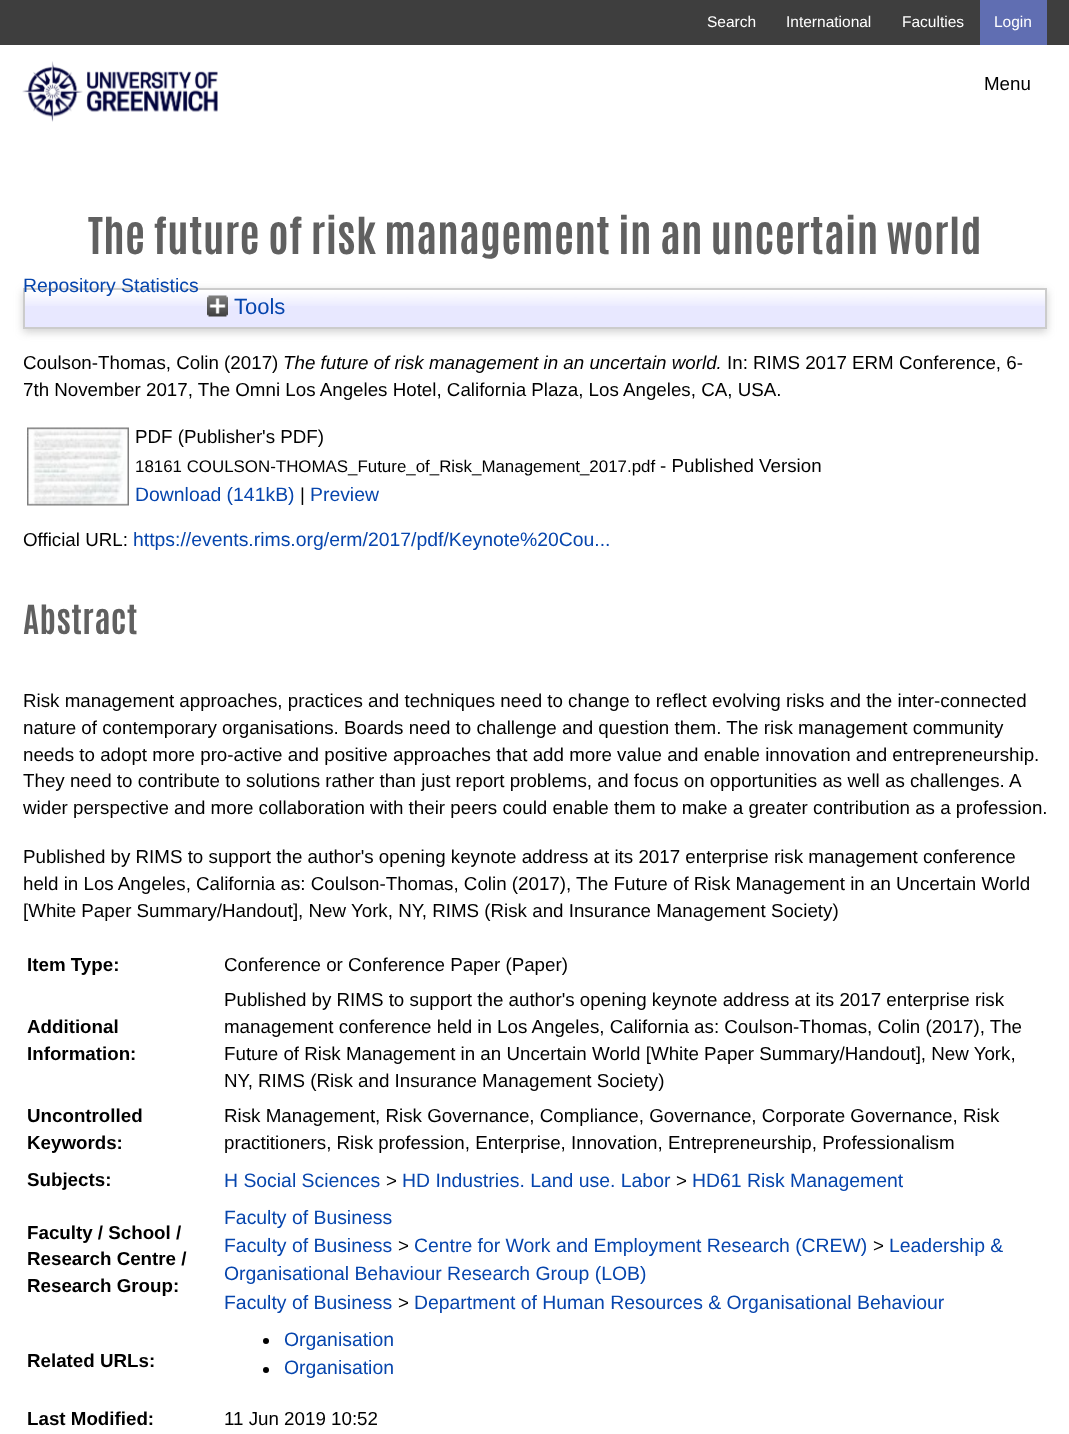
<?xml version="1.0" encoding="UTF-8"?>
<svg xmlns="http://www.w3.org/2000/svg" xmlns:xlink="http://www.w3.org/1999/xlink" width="1069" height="1434">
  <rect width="100%" height="100%" fill="#ffffff" />
  <rect width="1069" height="45" fill="#3e3e3e" />
  <rect x="980" width="67" height="45" fill="#606eb2" />
  <image x="22" y="61" width="196" height="61" xlink:href="image1.png" />
  <rect x="23" y="291" width="1024" height="41" fill="#646464" fill-opacity="0.3" filter="blur(4.5px)" />
  <rect x="25" y="290" width="1020" height="37" fill="#e8e8ff" />
  <image x="25" y="290" width="1020" height="16" xlink:href="image2.png" />
  <rect x="24" y="289" width="1022" height="39" fill="none" stroke="#cccccc" stroke-width="2" />
  <image x="207" y="295" width="21" height="22" xlink:href="image3.png" />
  <image x="27" y="427" width="102" height="79" xlink:href="image4.png" />
  <circle cx="266" cy="1341" r="3" fill="#000000" />
  <circle cx="266" cy="1370" r="3" fill="#000000" />
  <text x="707" y="27" style="font-family: Liberation Sans; font-size: 15.5px; fill: #ffffff">Search</text>
  <text x="786" y="27" style="font-family: Liberation Sans; font-size: 15.5px; fill: #ffffff">International</text>
  <text x="902" y="27" style="font-family: Liberation Sans; font-size: 15.5px; fill: #ffffff">Faculties</text>
  <text x="994" y="27" style="font-family: Liberation Sans; font-size: 15.5px; fill: #ffffff">Login</text>
  <text x="984" y="90" style="font-family: Liberation Sans; font-size: 18.75px; fill: #000000">Menu</text>
  <text x="88" y="254" style="font-family: Antonio; font-size: 43.1px; font-weight: bold; letter-spacing: 0.38px; fill: #606060">The future of risk management in an uncertain world</text>
  <text x="23" y="292" style="font-family: Liberation Sans; font-size: 19.4px; fill: #0645ad">Repository Statistics</text>
  <text x="234" y="314" style="font-family: Liberation Sans; font-size: 22px; fill: #0645ad">Tools</text>
  <text x="23" y="369" style="font-family: Liberation Sans; font-size: 18.75px; fill: #000000">Coulson-Thomas, Colin (2017)</text>
  <text x="283" y="369" style="font-family: Liberation Sans; font-size: 18.75px; font-style: italic; fill: #000000">The future of risk management in an uncertain world.</text>
  <text x="727" y="369" style="font-family: Liberation Sans; font-size: 18.75px; fill: #000000">In: RIMS 2017 ERM Conference, 6-</text>
  <text x="23" y="396" style="font-family: Liberation Sans; font-size: 18.75px; fill: #000000">7th November 2017, The Omni Los Angeles Hotel, California Plaza, Los Angeles, CA, USA.</text>
  <text x="135" y="443" style="font-family: Liberation Sans; font-size: 18.75px; fill: #000000">PDF (Publisher's PDF)</text>
  <text x="135" y="472" style="font-family: Liberation Sans; font-size: 16.9px; fill: #000000">18161 COULSON-THOMAS_Future_of_Risk_Management_2017.pdf</text>
  <text x="660" y="472" style="font-family: Liberation Sans; font-size: 18.75px; fill: #000000">- Published Version</text>
  <text x="135" y="501" style="font-family: Liberation Sans; font-size: 19.4px; fill: #0645ad">Download (141kB)</text>
  <text x="300" y="501" style="font-family: Liberation Sans; font-size: 18.75px; fill: #000000">|</text>
  <text x="310" y="501" style="font-family: Liberation Sans; font-size: 19.4px; fill: #0645ad">Preview</text>
  <text x="23" y="546" style="font-family: Liberation Sans; font-size: 18.75px; fill: #000000">Official URL:</text>
  <text x="133" y="546" style="font-family: Liberation Sans; font-size: 19.4px; fill: #0645ad">https://events.rims.org/erm/2017/pdf/Keynote%20Cou...</text>
  <text x="23" y="634" style="font-family: Antonio; font-size: 34px; font-weight: bold; letter-spacing: 0.38px; fill: #606060">Abstract</text>
  <text x="23" y="707" style="font-family: Liberation Sans; font-size: 18.75px; fill: #000000">Risk management approaches, practices and techniques need to change to reflect evolving risks and the inter-connected</text>
  <text x="23" y="734" style="font-family: Liberation Sans; font-size: 18.75px; fill: #000000">nature of contemporary organisations. Boards need to challenge and question them. The risk management community</text>
  <text x="23" y="761" style="font-family: Liberation Sans; font-size: 18.75px; fill: #000000">needs to adopt more pro-active and positive approaches that add more value and enable innovation and entrepreneurship.</text>
  <text x="23" y="787" style="font-family: Liberation Sans; font-size: 18.75px; fill: #000000">They need to contribute to solutions rather than just report problems, and focus on opportunities as well as challenges. A</text>
  <text x="23" y="814" style="font-family: Liberation Sans; font-size: 18.75px; fill: #000000">wider perspective and more collaboration with their peers could enable them to make a greater contribution as a profession.</text>
  <text x="23" y="863" style="font-family: Liberation Sans; font-size: 18.75px; fill: #000000">Published by RIMS to support the author's opening keynote address at its 2017 enterprise risk management conference</text>
  <text x="23" y="890" style="font-family: Liberation Sans; font-size: 18.75px; fill: #000000">held in Los Angeles, California as: Coulson-Thomas, Colin (2017), The Future of Risk Management in an Uncertain World</text>
  <text x="23" y="917" style="font-family: Liberation Sans; font-size: 18.75px; fill: #000000">[White Paper Summary/Handout], New York, NY, RIMS (Risk and Insurance Management Society)</text>
  <text x="27" y="971" style="font-family: Liberation Sans; font-size: 18.75px; font-weight: bold; fill: #000000">Item Type:</text>
  <text x="224" y="971" style="font-family: Liberation Sans; font-size: 18.75px; fill: #000000">Conference or Conference Paper (Paper)</text>
  <text x="27" y="1033" style="font-family: Liberation Sans; font-size: 18.75px; font-weight: bold; fill: #000000">Additional</text>
  <text x="27" y="1060" style="font-family: Liberation Sans; font-size: 18.75px; font-weight: bold; fill: #000000">Information:</text>
  <text x="224" y="1006" style="font-family: Liberation Sans; font-size: 18.75px; fill: #000000">Published by RIMS to support the author's opening keynote address at its 2017 enterprise risk</text>
  <text x="224" y="1033" style="font-family: Liberation Sans; font-size: 18.75px; fill: #000000">management conference held in Los Angeles, California as: Coulson-Thomas, Colin (2017), The</text>
  <text x="224" y="1060" style="font-family: Liberation Sans; font-size: 18.75px; fill: #000000">Future of Risk Management in an Uncertain World [White Paper Summary/Handout], New York,</text>
  <text x="224" y="1087" style="font-family: Liberation Sans; font-size: 18.75px; fill: #000000">NY, RIMS (Risk and Insurance Management Society)</text>
  <text x="27" y="1122" style="font-family: Liberation Sans; font-size: 18.75px; font-weight: bold; fill: #000000">Uncontrolled</text>
  <text x="27" y="1149" style="font-family: Liberation Sans; font-size: 18.75px; font-weight: bold; fill: #000000">Keywords:</text>
  <text x="224" y="1122" style="font-family: Liberation Sans; font-size: 18.75px; fill: #000000">Risk Management, Risk Governance, Compliance, Governance, Corporate Governance, Risk</text>
  <text x="224" y="1149" style="font-family: Liberation Sans; font-size: 18.75px; fill: #000000">practitioners, Risk profession, Enterprise, Innovation, Entrepreneurship, Professionalism</text>
  <text x="27" y="1186" style="font-family: Liberation Sans; font-size: 18.75px; font-weight: bold; fill: #000000">Subjects:</text>
  <text x="224" y="1187" style="font-family: Liberation Sans; font-size: 19.4px; fill: #0645ad">H Social Sciences</text>
  <text x="386" y="1187" style="font-family: Liberation Sans; font-size: 18.75px; fill: #000000">&gt;</text>
  <text x="402" y="1187" style="font-family: Liberation Sans; font-size: 19.4px; fill: #0645ad">HD Industries. Land use. Labor</text>
  <text x="676" y="1187" style="font-family: Liberation Sans; font-size: 18.75px; fill: #000000">&gt;</text>
  <text x="692" y="1187" style="font-family: Liberation Sans; font-size: 19.4px; fill: #0645ad">HD61 Risk Management</text>
  <text x="27" y="1239" style="font-family: Liberation Sans; font-size: 18.75px; font-weight: bold; fill: #000000">Faculty / School /</text>
  <text x="27" y="1265" style="font-family: Liberation Sans; font-size: 18.75px; font-weight: bold; fill: #000000">Research Centre /</text>
  <text x="27" y="1292" style="font-family: Liberation Sans; font-size: 18.75px; font-weight: bold; fill: #000000">Research Group:</text>
  <text x="224" y="1224" style="font-family: Liberation Sans; font-size: 19.4px; fill: #0645ad">Faculty of Business</text>
  <text x="224" y="1252" style="font-family: Liberation Sans; font-size: 19.4px; fill: #0645ad">Faculty of Business</text>
  <text x="398" y="1252" style="font-family: Liberation Sans; font-size: 18.75px; fill: #000000">&gt;</text>
  <text x="414" y="1252" style="font-family: Liberation Sans; font-size: 19.4px; fill: #0645ad">Centre for Work and Employment Research (CREW)</text>
  <text x="873" y="1252" style="font-family: Liberation Sans; font-size: 18.75px; fill: #000000">&gt;</text>
  <text x="889" y="1252" style="font-family: Liberation Sans; font-size: 19.4px; fill: #0645ad">Leadership &amp;</text>
  <text x="224" y="1280" style="font-family: Liberation Sans; font-size: 19.4px; fill: #0645ad">Organisational Behaviour Research Group (LOB)</text>
  <text x="224" y="1309" style="font-family: Liberation Sans; font-size: 19.4px; fill: #0645ad">Faculty of Business</text>
  <text x="398" y="1309" style="font-family: Liberation Sans; font-size: 18.75px; fill: #000000">&gt;</text>
  <text x="414" y="1309" style="font-family: Liberation Sans; font-size: 19.4px; fill: #0645ad">Department of Human Resources &amp; Organisational Behaviour</text>
  <text x="27" y="1367" style="font-family: Liberation Sans; font-size: 18.75px; font-weight: bold; fill: #000000">Related URLs:</text>
  <text x="284" y="1346" style="font-family: Liberation Sans; font-size: 19.4px; fill: #0645ad">Organisation</text>
  <text x="284" y="1374" style="font-family: Liberation Sans; font-size: 19.4px; fill: #0645ad">Organisation</text>
  <text x="27" y="1425" style="font-family: Liberation Sans; font-size: 18.75px; font-weight: bold; fill: #000000">Last Modified:</text>
  <text x="224" y="1425" style="font-family: Liberation Sans; font-size: 18.75px; fill: #000000">11 Jun 2019 10:52</text>
</svg>
